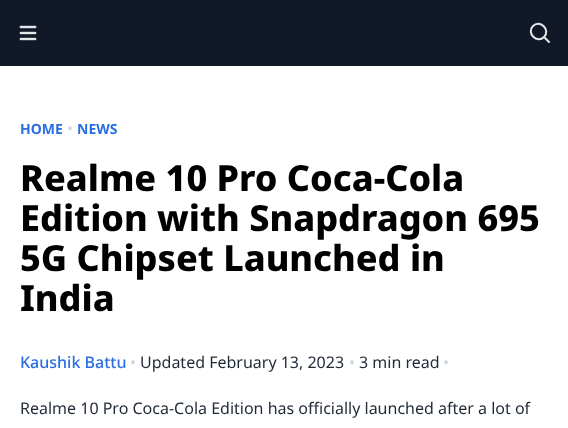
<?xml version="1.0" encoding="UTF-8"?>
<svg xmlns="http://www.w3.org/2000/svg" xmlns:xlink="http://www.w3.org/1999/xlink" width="568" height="428">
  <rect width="100%" height="100%" fill="#ffffff" />
  <rect width="568" height="66" fill="#111827" />
  <image x="19" y="25" width="18" height="16" xlink:href="image1.png" />
  <path d="M 549 42 l -5 -5 m 0 0 c 7 -7 -4 -18 -11 -11 c -7 7 4 18 11 11 z" fill="none" stroke="#e5e7eb" stroke-width="2" stroke-linecap="round" stroke-linejoin="round" />
  <text x="20" y="134" style="font-family: Noto Sans; font-size: 14px; font-weight: bold; fill: #2a6ee3">HOME</text>
  <text x="67" y="134" style="font-family: Noto Sans; font-size: 16px; fill: #d1d5db">•</text>
  <text x="77" y="134" style="font-family: Noto Sans; font-size: 14px; font-weight: bold; fill: #2a6ee3">NEWS</text>
  <text x="20" y="191" style="font-family: Noto Sans; font-size: 36px; font-weight: 800; fill: #000000">Realme 10 Pro Coca-Cola</text>
  <text x="20" y="231" style="font-family: Noto Sans; font-size: 36px; font-weight: 800; fill: #000000">Edition with Snapdragon 695</text>
  <text x="20" y="271" style="font-family: Noto Sans; font-size: 36px; font-weight: 800; fill: #000000">5G Chipset Launched in</text>
  <text x="20" y="311" style="font-family: Noto Sans; font-size: 36px; font-weight: 800; fill: #000000">India</text>
  <text x="20" y="368" style="font-family: Noto Sans; font-size: 16px; font-weight: 500; fill: #2a6ee3">Kaushik Battu</text>
  <text x="130" y="368" style="font-family: Noto Sans; font-size: 16px; fill: #d1d5db">•</text>
  <text x="140" y="368" style="font-family: Noto Sans; font-size: 16px; fill: #1f2937">Updated February 13, 2023</text>
  <text x="349" y="368" style="font-family: Noto Sans; font-size: 16px; fill: #d1d5db">•</text>
  <text x="359" y="368" style="font-family: Noto Sans; font-size: 16px; fill: #1f2937">3 min read</text>
  <text x="443" y="368" style="font-family: Noto Sans; font-size: 16px; fill: #d1d5db">•</text>
  <text x="20" y="414" style="font-family: Noto Sans; font-size: 16px; fill: #1f2937">Realme 10 Pro Coca-Cola Edition has officially launched after a lot of</text>
</svg>
